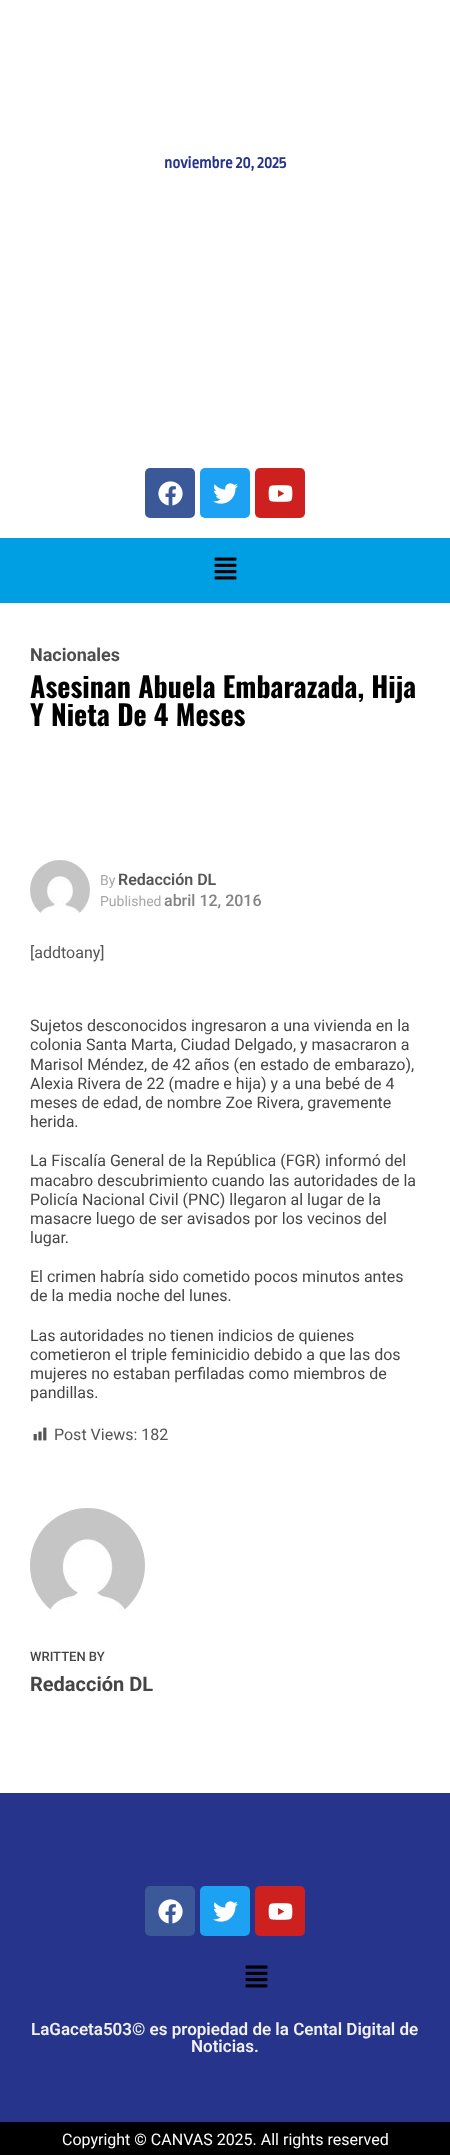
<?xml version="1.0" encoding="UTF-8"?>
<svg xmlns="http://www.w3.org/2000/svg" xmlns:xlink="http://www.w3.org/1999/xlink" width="450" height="2155">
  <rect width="100%" height="100%" fill="#ffffff" />
  <rect x="145" y="468" width="50" height="50" rx="5" fill="#3b5998" />
  <image x="158" y="481" width="25" height="25" xlink:href="image1.png" />
  <rect x="200" y="468" width="50" height="50" rx="5" fill="#1da1f2" />
  <image x="213" y="483" width="25" height="21" xlink:href="image2.png" />
  <rect x="255" y="468" width="50" height="50" rx="5" fill="#cd201f" />
  <image x="268" y="485" width="25" height="17" xlink:href="image3.png" />
  <rect y="538" width="450" height="65" fill="#009fe3" />
  <image x="214" y="557" width="23" height="23" xlink:href="image4.png" />
  <image x="30" y="860" width="60" height="55" xlink:href="image5.png" />
  <image x="33" y="1427" width="14" height="14" xlink:href="image6.png" />
  <image x="30" y="1508" width="115" height="103" xlink:href="image7.png" />
  <rect y="1793" width="450" height="329" fill="#27348b" />
  <rect x="145" y="1886" width="50" height="50" rx="5" fill="#3b5998" />
  <image x="158" y="1899" width="25" height="25" xlink:href="image1.png" />
  <rect x="200" y="1886" width="50" height="50" rx="5" fill="#1da1f2" />
  <image x="213" y="1901" width="25" height="21" xlink:href="image2.png" />
  <rect x="255" y="1886" width="50" height="50" rx="5" fill="#cd201f" />
  <image x="268" y="1903" width="25" height="17" xlink:href="image3.png" />
  <image x="245" y="1965" width="23" height="23" xlink:href="image8.png" />
  <rect y="2122" width="450" height="33" fill="#000000" />
  <text x="164" y="168" style="font-family: Ropa Sans; font-size: 17px; font-weight: bold; fill: #27348b">noviembre 20, 2025</text>
  <text x="30" y="661" style="font-family: Roboto; font-size: 18px; font-weight: bold; fill: #4d4d4d">Nacionales</text>
  <text x="30" y="698" style="font-family: Oswald; font-size: 28px; font-weight: bold; fill: #000000">Asesinan Abuela Embarazada, Hija</text>
  <text x="30" y="726" style="font-family: Oswald; font-size: 28px; font-weight: bold; fill: #000000">Y Nieta De 4 Meses</text>
  <text x="100" y="885" style="font-family: Roboto; font-size: 14px; fill: #a8a8a8">By</text>
  <text x="118" y="885" style="font-family: Roboto; font-size: 16px; font-weight: 600; fill: #555555">Redacción DL</text>
  <text x="100" y="906" style="font-family: Roboto; font-size: 14px; fill: #a8a8a8">Published</text>
  <text x="164" y="906" style="font-family: Roboto; font-size: 16px; font-weight: 500; fill: #838383">abril 12, 2016</text>
  <text x="30" y="958" style="font-family: Roboto; font-size: 16px; fill: #555555">[addtoany]</text>
  <text x="30" y="1031" style="font-family: Roboto; font-size: 16px; fill: #454545">Sujetos desconocidos ingresaron a una vivienda en la</text>
  <text x="30" y="1050" style="font-family: Roboto; font-size: 16px; fill: #454545">colonia Santa Marta, Ciudad Delgado, y masacraron a</text>
  <text x="30" y="1070" style="font-family: Roboto; font-size: 16px; fill: #454545">Marisol Méndez, de 42 años (en estado de embarazo),</text>
  <text x="30" y="1089" style="font-family: Roboto; font-size: 16px; fill: #454545">Alexia Rivera de 22 (madre e hija) y a una bebé de 4</text>
  <text x="30" y="1108" style="font-family: Roboto; font-size: 16px; fill: #454545">meses de edad, de nombre Zoe Rivera, gravemente</text>
  <text x="30" y="1127" style="font-family: Roboto; font-size: 16px; fill: #454545">herida.</text>
  <text x="30" y="1166" style="font-family: Roboto; font-size: 16px; fill: #454545">La Fiscalía General de la República (FGR) informó del</text>
  <text x="30" y="1186" style="font-family: Roboto; font-size: 16px; fill: #454545">macabro descubrimiento cuando las autoridades de la</text>
  <text x="30" y="1205" style="font-family: Roboto; font-size: 16px; fill: #454545">Policía Nacional Civil (PNC) llegaron al lugar de la</text>
  <text x="30" y="1224" style="font-family: Roboto; font-size: 16px; fill: #454545">masacre luego de ser avisados por los vecinos del</text>
  <text x="30" y="1243" style="font-family: Roboto; font-size: 16px; fill: #454545">lugar.</text>
  <text x="30" y="1282" style="font-family: Roboto; font-size: 16px; fill: #454545">El crimen habría sido cometido pocos minutos antes</text>
  <text x="30" y="1301" style="font-family: Roboto; font-size: 16px; fill: #454545">de la media noche del lunes.</text>
  <text x="30" y="1341" style="font-family: Roboto; font-size: 16px; fill: #454545">Las autoridades no tienen indicios de quienes</text>
  <text x="30" y="1360" style="font-family: Roboto; font-size: 16px; fill: #454545">cometieron el triple feminicidio debido a que las dos</text>
  <text x="30" y="1379" style="font-family: Roboto; font-size: 16px; fill: #454545">mujeres no estaban perfiladas como miembros de</text>
  <text x="30" y="1398" style="font-family: Roboto; font-size: 16px; fill: #454545">pandillas.</text>
  <text x="54" y="1440" style="font-family: Roboto; font-size: 16px; fill: #555555">Post Views: 182</text>
  <text x="30" y="1661" style="font-family: Roboto; font-size: 13px; font-weight: 500; fill: #454545">WRITTEN BY</text>
  <text x="30" y="1691" style="font-family: Roboto; font-size: 20px; font-weight: bold; fill: #454545">Redacción DL</text>
  <text x="31" y="2035" style="font-family: Roboto; font-size: 17px; font-weight: 600; fill: #f1f1f1">LaGaceta503© es propiedad de la Cental Digital de</text>
  <text x="191" y="2052" style="font-family: Roboto; font-size: 17px; font-weight: 600; fill: #f1f1f1">Noticias.</text>
  <text x="62" y="2145" style="font-family: Roboto; font-size: 16px; fill: #fcfcfc">Copyright © CANVAS 2025. All rights reserved</text>
</svg>
